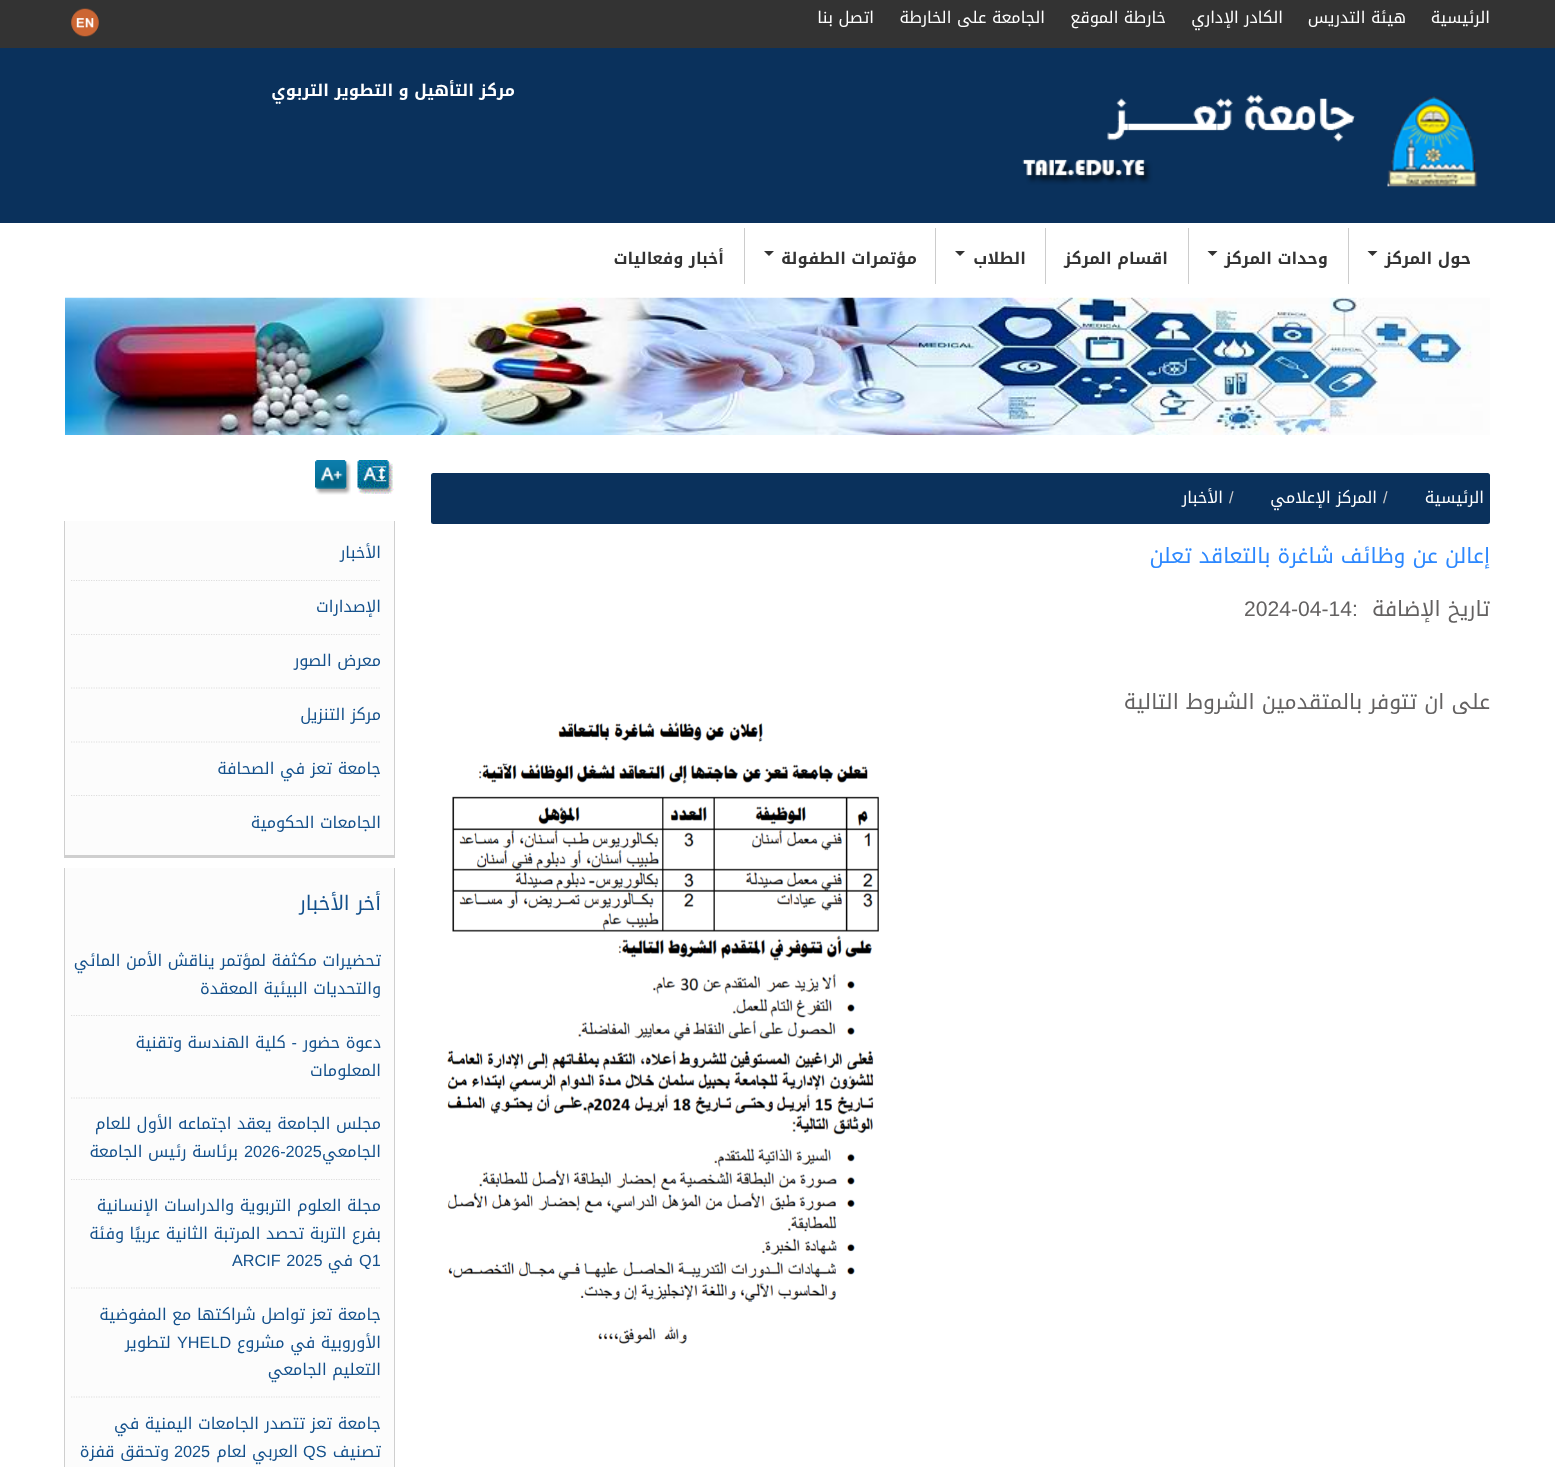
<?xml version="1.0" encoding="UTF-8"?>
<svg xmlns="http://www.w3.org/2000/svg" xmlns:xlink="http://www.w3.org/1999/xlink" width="1555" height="1467">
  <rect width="100%" height="100%" fill="#ffffff" />
  <rect width="1555" height="48" fill="#333333" />
  <image x="71" y="8" width="28" height="29" xlink:href="image1.png" />
  <rect y="48" width="1555" height="175" fill="#0a315c" />
  <image x="1022" y="94" width="456" height="93" xlink:href="image2.png" />
  <rect x="1348" y="228" width="1" height="56" fill="#cccccc" />
  <path d="M 1367.5 251 h 10 l -5 5 z" fill="#333333" />
  <rect x="1188" y="228" width="1" height="56" fill="#cccccc" />
  <path d="M 1207.5 251 h 10 l -5 5 z" fill="#333333" />
  <rect x="1045" y="228" width="1" height="56" fill="#cccccc" />
  <rect x="935" y="228" width="1" height="56" fill="#cccccc" />
  <path d="M 955 251 h 10 l -5 5 z" fill="#333333" />
  <rect x="744" y="228" width="1" height="56" fill="#cccccc" />
  <path d="M 764 251 h 10 l -5 5 z" fill="#333333" />
  <image x="65" y="297" width="1425" height="138" xlink:href="image3.png" />
  <image x="357" y="460" width="37" height="34" xlink:href="image4.png" />
  <image x="315" y="460" width="36" height="35" xlink:href="image5.png" />
  <rect x="431" y="473" width="1059" height="51" rx="2.5" fill="#0a315c" />
  <image x="447" y="722" width="432" height="622" xlink:href="image6.png" />
  <rect x="64" y="521" width="331" height="337" fill="#cfcfcf" filter="blur(0.5px)" />
  <rect x="65" y="521" width="329" height="334" fill="#fcfcfc" />
  <path d="M 71 580.5 h 310" fill="none" stroke="#dddddd" stroke-width="1.2" stroke-dasharray="1.25 1.25" />
  <path d="M 71 634.5 h 310" fill="none" stroke="#dddddd" stroke-width="1.2" stroke-dasharray="1.25 1.25" />
  <path d="M 71 688 h 310" fill="none" stroke="#dddddd" stroke-width="1.2" stroke-dasharray="1.25 1.25" />
  <path d="M 71 742 h 310" fill="none" stroke="#dddddd" stroke-width="1.2" stroke-dasharray="1.25 1.25" />
  <path d="M 71 795.5 h 310" fill="none" stroke="#dddddd" stroke-width="1.2" stroke-dasharray="1.25 1.25" />
  <rect x="64" y="868" width="331" height="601" fill="#cfcfcf" filter="blur(0.5px)" />
  <rect x="65" y="868" width="329" height="599" fill="#fcfcfc" />
  <path d="M 71 1015.5 h 310" fill="none" stroke="#dddddd" stroke-width="1.2" stroke-dasharray="1.25 1.25" />
  <path d="M 71 1098 h 310" fill="none" stroke="#dddddd" stroke-width="1.2" stroke-dasharray="1.25 1.25" />
  <path d="M 71 1179.5 h 310" fill="none" stroke="#dddddd" stroke-width="1.2" stroke-dasharray="1.25 1.25" />
  <path d="M 71 1288 h 310" fill="none" stroke="#dddddd" stroke-width="1.2" stroke-dasharray="1.25 1.25" />
  <path d="M 71 1397 h 310" fill="none" stroke="#dddddd" stroke-width="1.2" stroke-dasharray="1.25 1.25" />
  <text x="1490" y="23" style="font-family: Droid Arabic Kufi; font-size: 16.25px; direction: rtl; fill: #ffffff">الرئيسية</text>
  <text x="1406" y="23" style="font-family: Droid Arabic Kufi; font-size: 16.25px; direction: rtl; fill: #ffffff">هيئة التدريس</text>
  <text x="1283" y="23" style="font-family: Droid Arabic Kufi; font-size: 16.25px; direction: rtl; fill: #ffffff">الكادر الإداري</text>
  <text x="1166" y="23" style="font-family: Droid Arabic Kufi; font-size: 16.25px; direction: rtl; fill: #ffffff">خارطة الموقع</text>
  <text x="1045" y="23" style="font-family: Droid Arabic Kufi; font-size: 16.25px; direction: rtl; fill: #ffffff">الجامعة على الخارطة</text>
  <text x="874" y="23" style="font-family: Droid Arabic Kufi; font-size: 16.25px; direction: rtl; fill: #ffffff">اتصل بنا</text>
  <text x="515" y="96" style="font-family: Droid Arabic Kufi; font-size: 16.25px; font-weight: bold; direction: rtl; fill: #ffffff">مركز التأهيل و التطوير التربوي</text>
  <text x="1471" y="264" style="font-family: Droid Arabic Kufi; font-size: 16.25px; font-weight: bold; direction: rtl; fill: #333333">حول المركز</text>
  <text x="1328" y="264" style="font-family: Droid Arabic Kufi; font-size: 16.25px; font-weight: bold; direction: rtl; fill: #333333">وحدات المركز</text>
  <text x="1168" y="264" style="font-family: Droid Arabic Kufi; font-size: 16.25px; font-weight: bold; direction: rtl; fill: #333333">اقسام المركز</text>
  <text x="1026" y="264" style="font-family: Droid Arabic Kufi; font-size: 16.25px; font-weight: bold; direction: rtl; fill: #333333">الطلاب</text>
  <text x="917" y="264" style="font-family: Droid Arabic Kufi; font-size: 16.25px; font-weight: bold; direction: rtl; fill: #333333">مؤتمرات الطفولة</text>
  <text x="724" y="264" style="font-family: Droid Arabic Kufi; font-size: 16.25px; font-weight: bold; direction: rtl; fill: #333333">أخبار وفعاليات</text>
  <text x="1484" y="503" style="font-family: Droid Arabic Kufi; font-size: 16.25px; direction: rtl; fill: #ffffff">الرئيسية</text>
  <text x="1383" y="503" style="font-family: Liberation Sans; font-size: 16.25px; fill: #cccccc">/</text>
  <text x="1377" y="503" style="font-family: Droid Arabic Kufi; font-size: 16.25px; direction: rtl; fill: #ffffff">المركز الإعلامي</text>
  <text x="1229" y="503" style="font-family: Liberation Sans; font-size: 16.25px; fill: #cccccc">/</text>
  <text x="1223" y="503" style="font-family: Droid Arabic Kufi; font-size: 16.25px; direction: rtl; fill: #ffffff">الأخبار</text>
  <text x="1490" y="563" style="font-family: Droid Arabic Kufi; font-size: 21.1px; direction: rtl; fill: #2c88ff">إعالن عن وظائف شاغرة بالتعاقد تعلن</text>
  <text x="1490" y="616" style="font-family: Droid Arabic Kufi; font-size: 21.1px; direction: rtl; fill: #636161">تاريخ الإضافة</text>
  <text x="1244" y="616" style="font-family: Liberation Sans; font-size: 21.1px; fill: #636161">2024-04-14:</text>
  <text x="1490" y="709" style="font-family: Droid Arabic Kufi; font-size: 21.1px; direction: rtl; fill: #636161">على ان تتوفر بالمتقدمين الشروط التالية</text>
  <text x="381" y="558" style="font-family: Droid Arabic Kufi; font-size: 16.25px; direction: rtl; fill: #13508b">الأخبار</text>
  <text x="381" y="612" style="font-family: Droid Arabic Kufi; font-size: 16.25px; direction: rtl; fill: #13508b">الإصدارات</text>
  <text x="381" y="666" style="font-family: Droid Arabic Kufi; font-size: 16.25px; direction: rtl; fill: #13508b">معرض الصور</text>
  <text x="381" y="720" style="font-family: Droid Arabic Kufi; font-size: 16.25px; direction: rtl; fill: #13508b">مركز التنزيل</text>
  <text x="381" y="774" style="font-family: Droid Arabic Kufi; font-size: 16.25px; direction: rtl; fill: #13508b">جامعة تعز في الصحافة</text>
  <text x="381" y="828" style="font-family: Droid Arabic Kufi; font-size: 16.25px; direction: rtl; fill: #13508b">الجامعات الحكومية</text>
  <text x="381" y="910" style="font-family: Droid Arabic Kufi; font-size: 20px; direction: rtl; fill: #13508b">أخر الأخبار</text>
  <text x="381" y="966" style="font-family: Droid Arabic Kufi; font-size: 16.25px; direction: rtl; fill: #13508b">تحضيرات مكثفة لمؤتمر يناقش الأمن المائي</text>
  <text x="381" y="994" style="font-family: Droid Arabic Kufi; font-size: 16.25px; direction: rtl; fill: #13508b">والتحديات البيئية المعقدة</text>
  <text x="381" y="1048" style="font-family: Droid Arabic Kufi; font-size: 16.25px; direction: rtl; fill: #13508b">دعوة حضور</text>
  <text x="297" y="1048" style="font-family: Liberation Sans; font-size: 16.25px; direction: rtl; fill: #13508b">-</text>
  <text x="286" y="1048" style="font-family: Droid Arabic Kufi; font-size: 16.25px; direction: rtl; fill: #13508b">كلية الهندسة وتقنية</text>
  <text x="381" y="1076" style="font-family: Droid Arabic Kufi; font-size: 16.25px; direction: rtl; fill: #13508b">المعلومات</text>
  <text x="381" y="1129" style="font-family: Droid Arabic Kufi; font-size: 16.25px; direction: rtl; fill: #13508b">مجلس الجامعة يعقد اجتماعه الأول للعام</text>
  <text x="381" y="1157" style="font-family: Droid Arabic Kufi; font-size: 16.25px; direction: rtl; fill: #13508b">الجامعي</text>
  <text x="244" y="1157" style="font-family: Liberation Sans; font-size: 16.25px; fill: #13508b">2026-2025</text>
  <text x="238" y="1157" style="font-family: Droid Arabic Kufi; font-size: 16.25px; direction: rtl; fill: #13508b">برئاسة رئيس الجامعة</text>
  <text x="381" y="1211" style="font-family: Droid Arabic Kufi; font-size: 16.25px; direction: rtl; fill: #13508b">مجلة العلوم التربوية والدراسات الإنسانية</text>
  <text x="381" y="1239" style="font-family: Droid Arabic Kufi; font-size: 16.25px; direction: rtl; fill: #13508b">بفرع التربة تحصد المرتبة الثانية عربيًا وفئة</text>
  <text x="359" y="1266" style="font-family: Liberation Sans; font-size: 16.25px; fill: #13508b">Q1</text>
  <text x="353" y="1266" style="font-family: Droid Arabic Kufi; font-size: 16.25px; direction: rtl; fill: #13508b">في</text>
  <text x="232" y="1266" word-spacing="1" style="font-family: Liberation Sans; font-size: 16.25px; fill: #13508b">ARCIF 2025</text>
  <text x="381" y="1320" style="font-family: Droid Arabic Kufi; font-size: 16.25px; direction: rtl; fill: #13508b">جامعة تعز تواصل شراكتها مع المفوضية</text>
  <text x="381" y="1348" style="font-family: Droid Arabic Kufi; font-size: 16.25px; direction: rtl; fill: #13508b">الأوروبية في مشروع</text>
  <text x="177" y="1348" style="font-family: Liberation Sans; font-size: 16.25px; fill: #13508b">YHELD</text>
  <text x="171" y="1348" style="font-family: Droid Arabic Kufi; font-size: 16.25px; direction: rtl; fill: #13508b">لتطوير</text>
  <text x="381" y="1375" style="font-family: Droid Arabic Kufi; font-size: 16.25px; direction: rtl; fill: #13508b">التعليم الجامعي</text>
  <text x="381" y="1429" style="font-family: Droid Arabic Kufi; font-size: 16.25px; direction: rtl; fill: #13508b">جامعة تعز تتصدر الجامعات اليمنية في</text>
  <text x="381" y="1457" style="font-family: Droid Arabic Kufi; font-size: 16.25px; direction: rtl; fill: #13508b">تصنيف</text>
  <text x="303" y="1457" style="font-family: Liberation Sans; font-size: 16.25px; fill: #13508b">QS</text>
  <text x="298" y="1457" style="font-family: Droid Arabic Kufi; font-size: 16.25px; direction: rtl; fill: #13508b">العربي لعام</text>
  <text x="174" y="1457" style="font-family: Liberation Sans; font-size: 16.25px; fill: #13508b">2025</text>
  <text x="169" y="1457" style="font-family: Droid Arabic Kufi; font-size: 16.25px; direction: rtl; fill: #13508b">وتحقق قفزة</text>
</svg>
